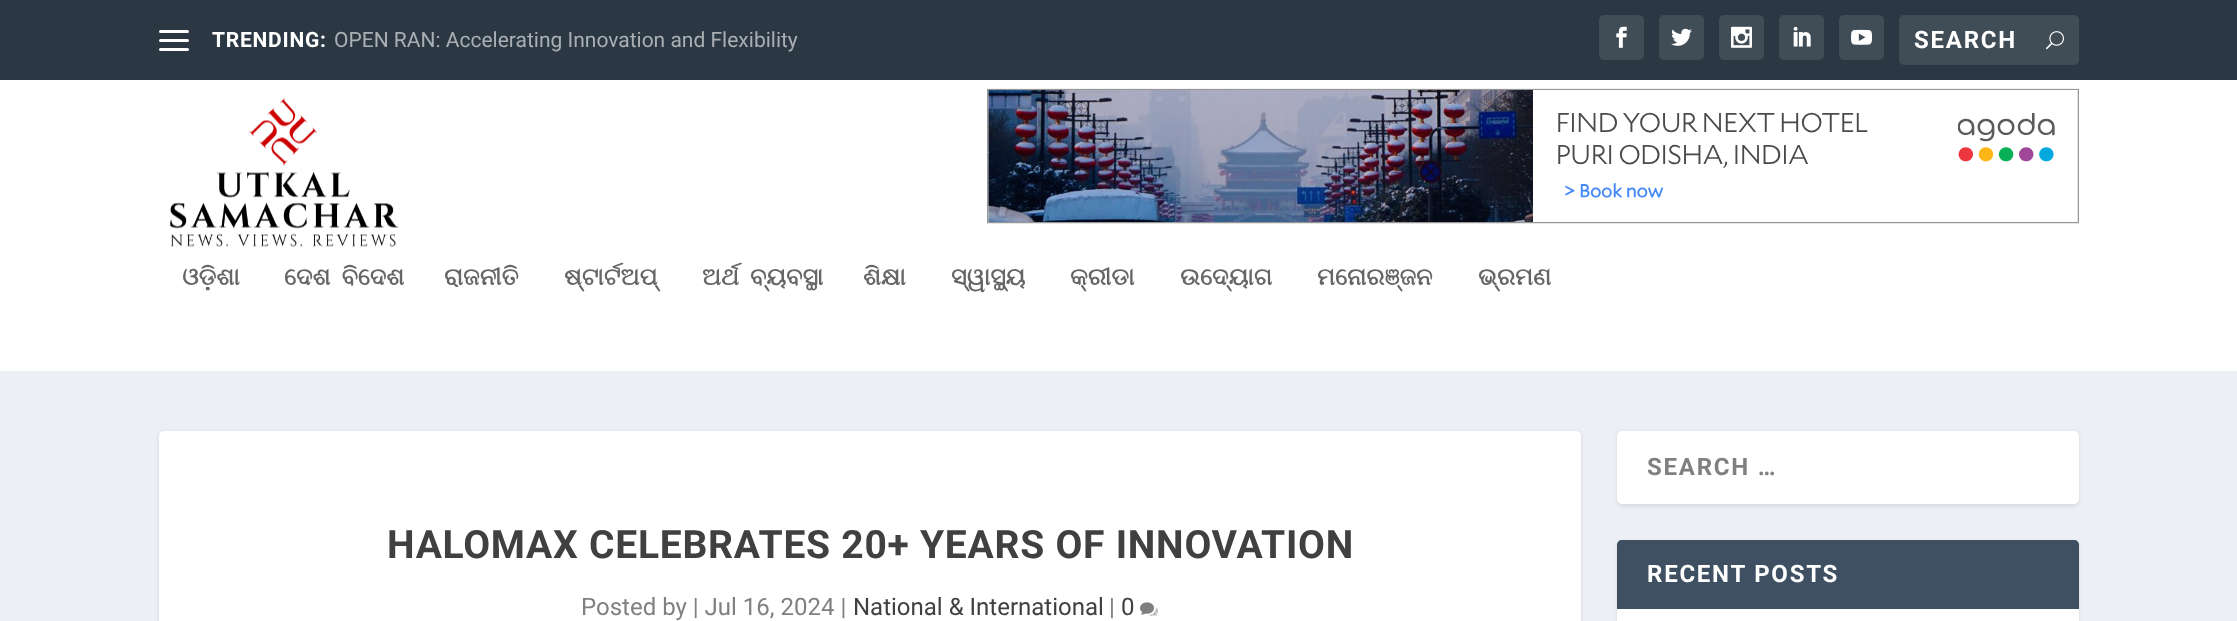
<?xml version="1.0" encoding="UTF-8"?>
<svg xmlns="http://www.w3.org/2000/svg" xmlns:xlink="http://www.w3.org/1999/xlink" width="2237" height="621">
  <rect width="100%" height="100%" fill="#ecf0f5" />
  <rect width="2237" height="80" fill="#2b3843" />
  <rect x="159" y="30" width="30" height="3" rx="1.5" fill="#ffffff" />
  <rect x="159" y="39" width="30" height="3" rx="1.5" fill="#ffffff" />
  <rect x="159" y="48" width="30" height="3" rx="1.5" fill="#ffffff" />
  <rect x="1599" y="15" width="45" height="45" rx="5" fill="#404c56" />
  <image x="1616" y="26" width="11" height="22" xlink:href="image1.png" />
  <rect x="1659" y="15" width="45" height="45" rx="5" fill="#404c56" />
  <image x="1671" y="28" width="21" height="18" xlink:href="image2.png" />
  <rect x="1719" y="15" width="45" height="45" rx="5" fill="#404c56" />
  <image x="1731" y="26" width="21" height="22" xlink:href="image3.png" />
  <rect x="1779" y="15" width="45" height="45" rx="5" fill="#404c56" />
  <image x="1793" y="26" width="18" height="21" xlink:href="image4.png" />
  <rect x="1839" y="15" width="45" height="45" rx="5" fill="#404c56" />
  <image x="1851" y="29" width="21" height="16" xlink:href="image5.png" />
  <rect x="1899" y="15" width="180" height="50" rx="5" fill="#404c56" />
  <image x="2046" y="31" width="18" height="19" xlink:href="image6.png" />
  <rect y="80" width="2237" height="291" fill="#ffffff" />
  <image x="170" y="97" width="229" height="150" xlink:href="image7.png" />
  <image x="987" y="88" width="1092" height="136" xlink:href="image8.png" />
  <rect x="159" y="432" width="1422" height="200" rx="5" fill="#000000" fill-opacity="0.1" filter="blur(2px)" />
  <rect x="159" y="431" width="1422" height="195" rx="5" fill="#ffffff" />
  <image x="1140" y="602" width="18" height="14" xlink:href="image9.png" />
  <rect x="1617" y="432" width="462" height="74" rx="5" fill="#000000" fill-opacity="0.1" filter="blur(2px)" />
  <rect x="1617" y="431" width="462" height="73" rx="5" fill="#ffffff" />
  <rect x="1617" y="542" width="462" height="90" rx="5" fill="#000000" fill-opacity="0.1" filter="blur(2px)" />
  <rect x="1617" y="540" width="462" height="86" rx="5" fill="#ffffff" />
  <path d="M 1622 540 h 452 c 3 0 5 2 5 5 v 64 h -462 v -64 c 0 -3 2 -5 5 -5 z" fill="#3e5062" />
  <text x="212" y="47" style="font-family: Roboto; font-size: 21px; font-weight: bold; letter-spacing: 0.75px; fill: #ffffff">TRENDING:</text>
  <text x="334" y="47" style="font-family: Roboto; font-size: 21px; fill: #aaafb4">OPEN RAN: Accelerating Innovation and Flexibility</text>
  <text x="1914" y="48" style="font-family: Roboto; font-size: 24px; font-weight: bold; letter-spacing: 1.75px; fill: #ffffff">SEARCH</text>
  <text x="182" y="285" style="font-family: FreeSerif; font-size: 24px; font-weight: bold; fill: #666666">ଓଡ଼ିଶା</text>
  <text x="284" y="285" word-spacing="-1" style="font-family: FreeSerif; font-size: 24px; font-weight: bold; fill: #666666">ଦେଶ ବିଦେଶ</text>
  <text x="444" y="285" style="font-family: FreeSerif; font-size: 24px; font-weight: bold; fill: #666666">ରାଜନୀତି</text>
  <text x="564" y="285" style="font-family: FreeSerif; font-size: 24px; font-weight: bold; fill: #666666">ଷ୍ଟାର୍ଟଅପ୍</text>
  <text x="702" y="285" word-spacing="-1" style="font-family: FreeSerif; font-size: 24px; font-weight: bold; fill: #666666">ଅର୍ଥ ବ୍ୟବସ୍ଥା</text>
  <text x="863" y="285" style="font-family: FreeSerif; font-size: 24px; font-weight: bold; fill: #666666">ଶିକ୍ଷା</text>
  <text x="951" y="285" style="font-family: FreeSerif; font-size: 24px; font-weight: bold; fill: #666666">ସ୍ୱାସ୍ଥ୍ୟ</text>
  <text x="1070" y="285" style="font-family: FreeSerif; font-size: 24px; font-weight: bold; fill: #666666">କ୍ରୀଡା</text>
  <text x="1180" y="285" style="font-family: FreeSerif; font-size: 24px; font-weight: bold; fill: #666666">ଉଦ୍ୟୋଗ</text>
  <text x="1317" y="285" style="font-family: FreeSerif; font-size: 24px; font-weight: bold; fill: #666666">ମନୋରଞ୍ଜନ</text>
  <text x="1478" y="285" style="font-family: FreeSerif; font-size: 24px; font-weight: bold; fill: #666666">ଭ୍ରମଣ</text>
  <text x="387" y="558" style="font-family: Roboto; font-size: 39px; font-weight: bold; letter-spacing: 0.75px; fill: #404040">HALOMAX CELEBRATES 20+ YEARS OF INNOVATION</text>
  <text x="581" y="615" style="font-family: Roboto; font-size: 24px; fill: #808080">Posted by | Jul 16, 2024 |</text>
  <text x="853" y="615" style="font-family: Roboto; font-size: 24px; fill: #404040">National &amp; International</text>
  <text x="1109" y="615" style="font-family: Roboto; font-size: 24px; fill: #808080">|</text>
  <text x="1121" y="615" style="font-family: Roboto; font-size: 24px; fill: #404040">0</text>
  <text x="1647" y="475" style="font-family: Roboto; font-size: 24px; font-weight: bold; letter-spacing: 1.75px; fill: #808080">SEARCH …</text>
  <text x="1647" y="582" style="font-family: Roboto; font-size: 24px; font-weight: bold; letter-spacing: 1.75px; fill: #ffffff">RECENT POSTS</text>
</svg>
